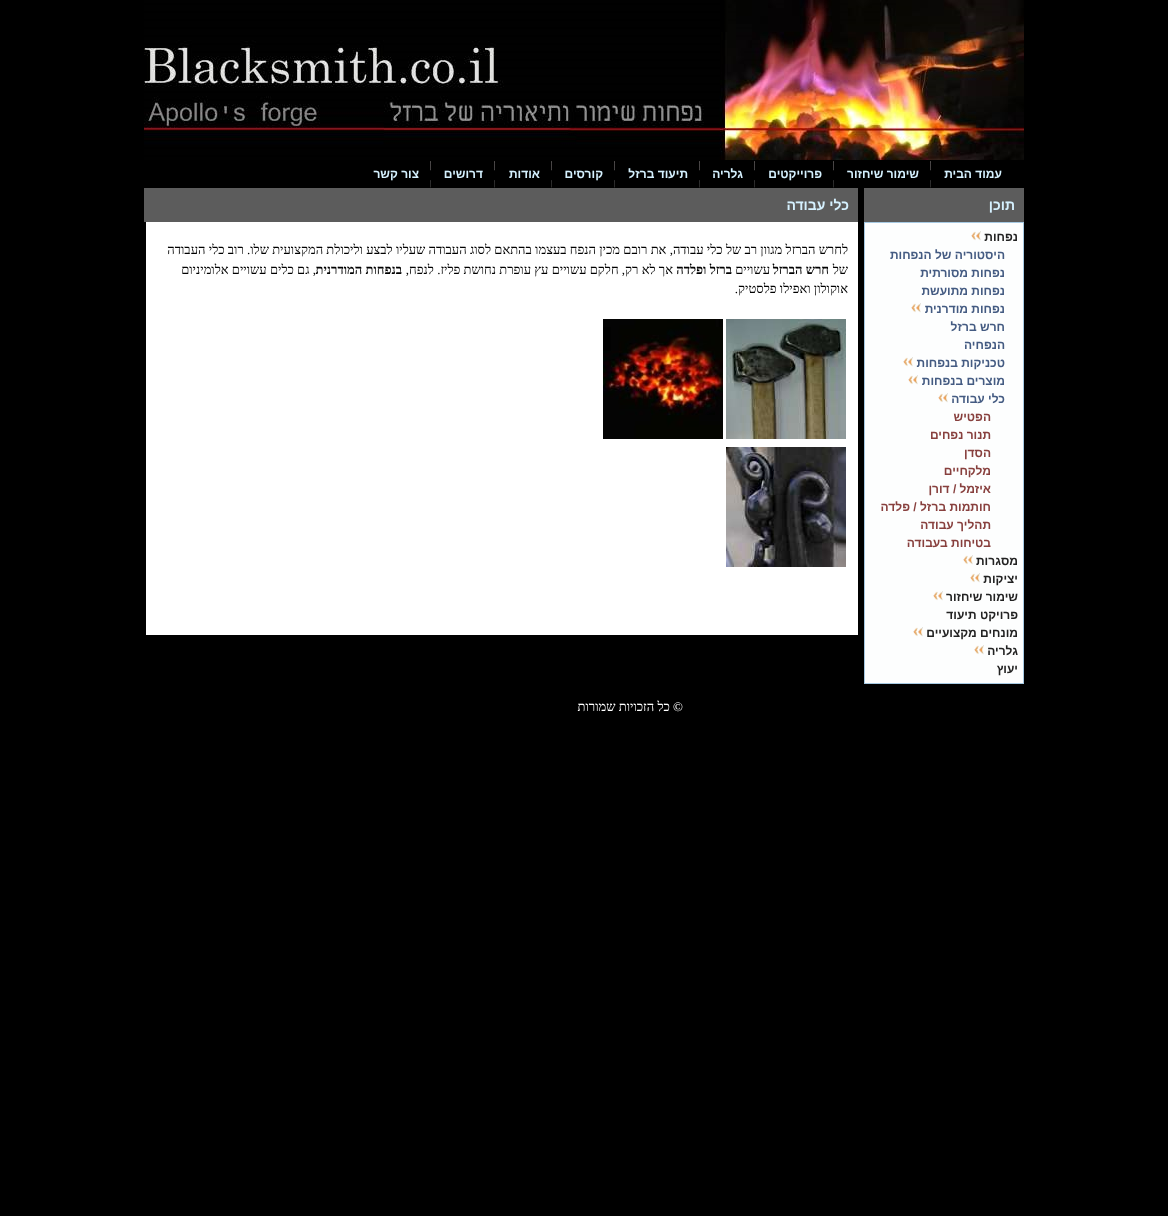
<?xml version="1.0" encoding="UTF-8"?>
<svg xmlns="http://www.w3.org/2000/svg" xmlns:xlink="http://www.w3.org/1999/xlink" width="1168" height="1216">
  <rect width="100%" height="100%" fill="#000000" />
  <image x="144" y="0" width="880" height="160" xlink:href="image1.png" />
  <image x="930" y="161" width="1" height="27" xlink:href="image2.png" />
  <image x="833" y="161" width="1" height="27" xlink:href="image2.png" />
  <image x="754" y="161" width="1" height="27" xlink:href="image2.png" />
  <image x="699" y="161" width="1" height="27" xlink:href="image2.png" />
  <image x="614" y="161" width="1" height="27" xlink:href="image2.png" />
  <image x="551" y="161" width="1" height="27" xlink:href="image2.png" />
  <image x="494" y="161" width="1" height="27" xlink:href="image2.png" />
  <image x="430" y="161" width="1" height="27" xlink:href="image2.png" />
  <rect x="864" y="188" width="160" height="34" fill="#5c5c5c" />
  <rect x="864.5" y="222.5" width="159" height="461" fill="#fdfefe" stroke="#a6c9e2" />
  <image x="971" y="231" width="10" height="10" xlink:href="image3.png" />
  <image x="911" y="303" width="10" height="10" xlink:href="image3.png" />
  <image x="903" y="357" width="10" height="10" xlink:href="image3.png" />
  <image x="908" y="375" width="10" height="10" xlink:href="image3.png" />
  <image x="938" y="393" width="10" height="10" xlink:href="image3.png" />
  <image x="963" y="555" width="10" height="10" xlink:href="image3.png" />
  <image x="970" y="573" width="10" height="10" xlink:href="image3.png" />
  <image x="933" y="591" width="10" height="10" xlink:href="image3.png" />
  <image x="913" y="627" width="10" height="10" xlink:href="image3.png" />
  <image x="974" y="645" width="10" height="10" xlink:href="image3.png" />
  <rect x="144" y="188" width="714" height="34" fill="#5c5c5c" />
  <rect x="146" y="222" width="712" height="413" fill="#ffffff" />
  <image x="726" y="319" width="120" height="120" xlink:href="image4.png" />
  <image x="603" y="319" width="120" height="120" xlink:href="image5.png" />
  <image x="726" y="447" width="120" height="120" xlink:href="image6.png" />
  <text x="1002" y="178" style="font-family: Liberation Sans; font-size: 12px; font-weight: bold; direction: rtl; fill: #d5f1ff">עמוד הבית</text>
  <text x="919" y="178" style="font-family: Liberation Sans; font-size: 12px; font-weight: bold; direction: rtl; fill: #d5f1ff">שימור שיחזור</text>
  <text x="822" y="178" style="font-family: Liberation Sans; font-size: 12px; font-weight: bold; direction: rtl; fill: #d5f1ff">פרוייקטים</text>
  <text x="743" y="178" style="font-family: Liberation Sans; font-size: 12px; font-weight: bold; direction: rtl; fill: #d5f1ff">גלריה</text>
  <text x="688" y="178" style="font-family: Liberation Sans; font-size: 12px; font-weight: bold; direction: rtl; fill: #d5f1ff">תיעוד ברזל</text>
  <text x="603" y="178" style="font-family: Liberation Sans; font-size: 12px; font-weight: bold; direction: rtl; fill: #d5f1ff">קורסים</text>
  <text x="540" y="178" style="font-family: Liberation Sans; font-size: 12px; font-weight: bold; direction: rtl; fill: #d5f1ff">אודות</text>
  <text x="483" y="178" style="font-family: Liberation Sans; font-size: 12px; font-weight: bold; direction: rtl; fill: #d5f1ff">דרושים</text>
  <text x="419" y="178" style="font-family: Liberation Sans; font-size: 12px; font-weight: bold; direction: rtl; fill: #d5f1ff">צור קשר</text>
  <text x="1015" y="210" style="font-family: Liberation Sans; font-size: 14px; font-weight: bold; direction: rtl; fill: #d5f1ff">תוכן</text>
  <text x="1018" y="241" style="font-family: Liberation Sans; font-size: 12px; font-weight: bold; direction: rtl; fill: #222222">נפחות</text>
  <text x="1005" y="259" style="font-family: Liberation Sans; font-size: 12px; font-weight: bold; direction: rtl; fill: #445b82">היסטוריה של הנפחות</text>
  <text x="1005" y="277" style="font-family: Liberation Sans; font-size: 12px; font-weight: bold; direction: rtl; fill: #445b82">נפחות מסורתית</text>
  <text x="1005" y="295" style="font-family: Liberation Sans; font-size: 12px; font-weight: bold; direction: rtl; fill: #445b82">נפחות מתועשת</text>
  <text x="1005" y="313" style="font-family: Liberation Sans; font-size: 12px; font-weight: bold; direction: rtl; fill: #445b82">נפחות מודרנית</text>
  <text x="1005" y="331" style="font-family: Liberation Sans; font-size: 12px; font-weight: bold; direction: rtl; fill: #445b82">חרש ברזל</text>
  <text x="1005" y="349" style="font-family: Liberation Sans; font-size: 12px; font-weight: bold; direction: rtl; fill: #445b82">הנפחיה</text>
  <text x="1005" y="367" style="font-family: Liberation Sans; font-size: 12px; font-weight: bold; direction: rtl; fill: #445b82">טכניקות בנפחות</text>
  <text x="1005" y="385" style="font-family: Liberation Sans; font-size: 12px; font-weight: bold; direction: rtl; fill: #445b82">מוצרים בנפחות</text>
  <text x="1005" y="403" style="font-family: Liberation Sans; font-size: 12px; font-weight: bold; direction: rtl; fill: #445b82">כלי עבודה</text>
  <text x="991" y="421" style="font-family: Liberation Sans; font-size: 12px; font-weight: bold; direction: rtl; fill: #88403e">הפטיש</text>
  <text x="991" y="439" style="font-family: Liberation Sans; font-size: 12px; font-weight: bold; direction: rtl; fill: #88403e">תנור נפחים</text>
  <text x="991" y="457" style="font-family: Liberation Sans; font-size: 12px; font-weight: bold; direction: rtl; fill: #88403e">הסדן</text>
  <text x="991" y="475" style="font-family: Liberation Sans; font-size: 12px; font-weight: bold; direction: rtl; fill: #88403e">מלקחיים</text>
  <text x="991" y="493" style="font-family: Liberation Sans; font-size: 12px; font-weight: bold; direction: rtl; fill: #88403e">איזמל / דורן</text>
  <text x="991" y="511" style="font-family: Liberation Sans; font-size: 12px; font-weight: bold; direction: rtl; fill: #88403e">חותמות ברזל / פלדה</text>
  <text x="991" y="529" style="font-family: Liberation Sans; font-size: 12px; font-weight: bold; direction: rtl; fill: #88403e">תהליך עבודה</text>
  <text x="991" y="547" style="font-family: Liberation Sans; font-size: 12px; font-weight: bold; direction: rtl; fill: #88403e">בטיחות בעבודה</text>
  <text x="1018" y="565" style="font-family: Liberation Sans; font-size: 12px; font-weight: bold; direction: rtl; fill: #222222">מסגרות</text>
  <text x="1018" y="583" style="font-family: Liberation Sans; font-size: 12px; font-weight: bold; direction: rtl; fill: #222222">יציקות</text>
  <text x="1018" y="601" style="font-family: Liberation Sans; font-size: 12px; font-weight: bold; direction: rtl; fill: #222222">שימור שיחזור</text>
  <text x="1018" y="619" style="font-family: Liberation Sans; font-size: 12px; font-weight: bold; direction: rtl; fill: #222222">פרויקט תיעוד</text>
  <text x="1018" y="637" style="font-family: Liberation Sans; font-size: 12px; font-weight: bold; direction: rtl; fill: #222222">מונחים מקצועיים</text>
  <text x="1018" y="655" style="font-family: Liberation Sans; font-size: 12px; font-weight: bold; direction: rtl; fill: #222222">גלריה</text>
  <text x="1018" y="673" style="font-family: Liberation Sans; font-size: 12px; font-weight: bold; direction: rtl; fill: #222222">יעוץ</text>
  <text x="849" y="210" style="font-family: Liberation Sans; font-size: 14px; font-weight: bold; direction: rtl; fill: #d5f1ff">כלי עבודה</text>
  <text x="848" y="254" style="font-family: Liberation Serif; font-size: 13px; direction: rtl; fill: #000000">לחרש הברזל מגוון רב של כלי עבודה, את רובם מכין הנפח בעצמו בהתאם לסוג העבודה שעליו לבצע וליכולת המקצועית שלו. רוב כלי העבודה</text>
  <text x="848" y="274" style="font-family: Liberation Serif; font-size: 13px; direction: rtl; fill: #000000">של</text>
  <text x="829" y="274" style="font-family: Liberation Serif; font-size: 13px; font-weight: bold; direction: rtl; fill: #000000">חרש הברזל</text>
  <text x="770" y="274" style="font-family: Liberation Serif; font-size: 13px; direction: rtl; fill: #000000">עשויים</text>
  <text x="732" y="274" style="font-family: Liberation Serif; font-size: 13px; font-weight: bold; direction: rtl; fill: #000000">ברזל ופלדה</text>
  <text x="673" y="274" style="font-family: Liberation Serif; font-size: 13px; direction: rtl; fill: #000000">אך לא רק, חלקם עשויים עץ עופרת נחושת פליז. לנפח,</text>
  <text x="402" y="274" style="font-family: Liberation Serif; font-size: 13px; font-weight: bold; direction: rtl; fill: #000000">בנפחות המודרנית</text>
  <text x="316" y="274" style="font-family: Liberation Serif; font-size: 13px; direction: rtl; fill: #000000">, גם כלים עשויים אלומיניום</text>
  <text x="848" y="293" style="font-family: Liberation Serif; font-size: 13px; direction: rtl; fill: #000000">אוקולון ואפילו פלסטיק.</text>
  <text x="683" y="711" style="font-family: Liberation Serif; font-size: 13px; direction: rtl; fill: #ffffff">© כל הזכויות שמורות</text>
</svg>
